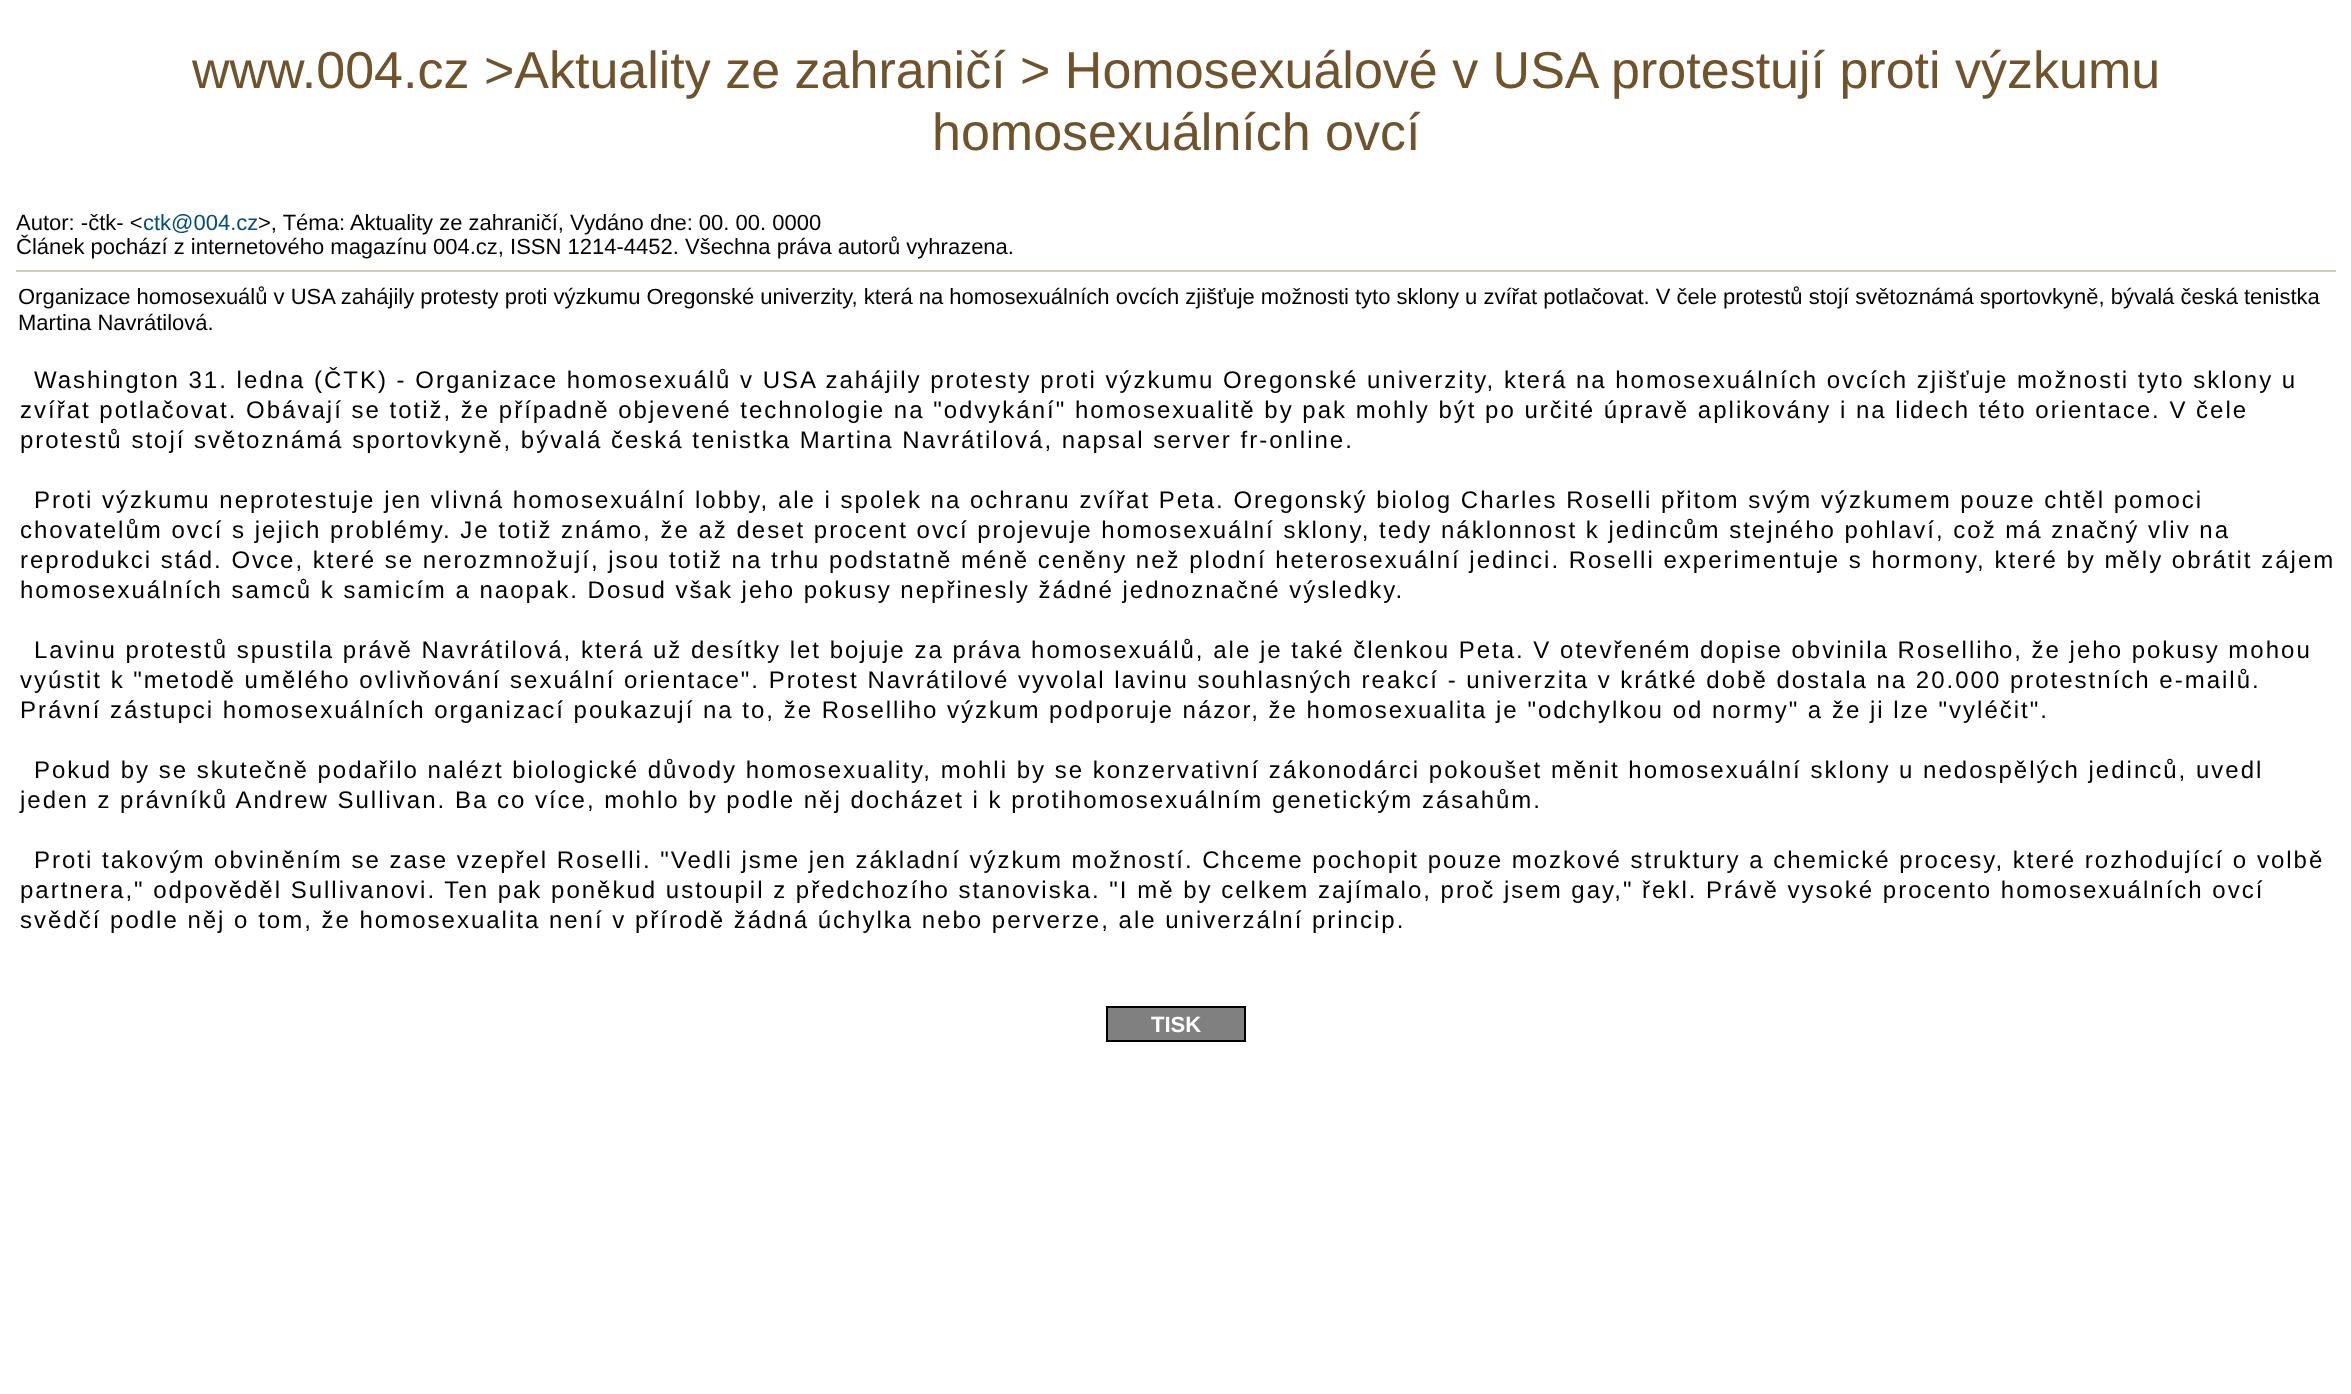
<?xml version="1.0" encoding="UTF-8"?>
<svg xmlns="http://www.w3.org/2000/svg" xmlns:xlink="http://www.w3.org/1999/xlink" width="2351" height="1394">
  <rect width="100%" height="100%" fill="#ffffff" />
  <rect x="16" y="270" width="2320" height="2" fill="#d4cbb8" />
  <rect x="1107" y="1007" width="138" height="34" fill="#808080" stroke="#000000" stroke-width="2" />
  <text x="192" y="88" style="font-family: Liberation Sans; font-size: 52px; fill: #70522b">www.004.cz &gt;Aktuality ze zahraničí &gt; Homosexuálové v USA protestují proti výzkumu</text>
  <text x="932" y="150" style="font-family: Liberation Sans; font-size: 52px; fill: #70522b">homosexuálních ovcí</text>
  <text x="16" y="230" style="font-family: Liberation Sans; font-size: 22px; fill: #000000">Autor: -čtk- &lt;</text>
  <text x="143" y="230" style="font-family: Liberation Sans; font-size: 22px; fill: #004d80">ctk@004.cz</text>
  <text x="258" y="230" style="font-family: Liberation Sans; font-size: 22px; fill: #000000">&gt;, Téma: Aktuality ze zahraničí, Vydáno dne: 00. 00. 0000</text>
  <text x="16" y="254" style="font-family: Liberation Sans; font-size: 22px; fill: #000000">Článek pochází z internetového magazínu 004.cz, ISSN 1214-4452. Všechna práva autorů vyhrazena.</text>
  <text x="18" y="304" style="font-family: Liberation Sans; font-size: 22px; fill: #000000">Organizace homosexuálů v USA zahájily protesty proti výzkumu Oregonské univerzity, která na homosexuálních ovcích zjišťuje možnosti tyto sklony u zvířat potlačovat. V čele protestů stojí světoznámá sportovkyně, bývalá česká tenistka</text>
  <text x="18" y="330" style="font-family: Liberation Sans; font-size: 22px; fill: #000000">Martina Navrátilová.</text>
  <text x="34" y="388" style="font-family: Liberation Sans; font-size: 24px; letter-spacing: 2px; fill: #000000">Washington 31. ledna (ČTK) - Organizace homosexuálů v USA zahájily protesty proti výzkumu Oregonské univerzity, která na homosexuálních ovcích zjišťuje možnosti tyto sklony u</text>
  <text x="20" y="418" style="font-family: Liberation Sans; font-size: 24px; letter-spacing: 2px; fill: #000000">zvířat potlačovat. Obávají se totiž, že případně objevené technologie na "odvykání" homosexualitě by pak mohly být po určité úpravě aplikovány i na lidech této orientace. V čele</text>
  <text x="20" y="448" style="font-family: Liberation Sans; font-size: 24px; letter-spacing: 2px; fill: #000000">protestů stojí světoznámá sportovkyně, bývalá česká tenistka Martina Navrátilová, napsal server fr-online.</text>
  <text x="34" y="508" style="font-family: Liberation Sans; font-size: 24px; letter-spacing: 2px; fill: #000000">Proti výzkumu neprotestuje jen vlivná homosexuální lobby, ale i spolek na ochranu zvířat Peta. Oregonský biolog Charles Roselli přitom svým výzkumem pouze chtěl pomoci</text>
  <text x="20" y="538" style="font-family: Liberation Sans; font-size: 24px; letter-spacing: 2px; fill: #000000">chovatelům ovcí s jejich problémy. Je totiž známo, že až deset procent ovcí projevuje homosexuální sklony, tedy náklonnost k jedincům stejného pohlaví, což má značný vliv na</text>
  <text x="20" y="568" style="font-family: Liberation Sans; font-size: 24px; letter-spacing: 2px; fill: #000000">reprodukci stád. Ovce, které se nerozmnožují, jsou totiž na trhu podstatně méně ceněny než plodní heterosexuální jedinci. Roselli experimentuje s hormony, které by měly obrátit zájem</text>
  <text x="20" y="598" style="font-family: Liberation Sans; font-size: 24px; letter-spacing: 2px; fill: #000000">homosexuálních samců k samicím a naopak. Dosud však jeho pokusy nepřinesly žádné jednoznačné výsledky.</text>
  <text x="34" y="658" style="font-family: Liberation Sans; font-size: 24px; letter-spacing: 2px; fill: #000000">Lavinu protestů spustila právě Navrátilová, která už desítky let bojuje za práva homosexuálů, ale je také členkou Peta. V otevřeném dopise obvinila Roselliho, že jeho pokusy mohou</text>
  <text x="20" y="688" style="font-family: Liberation Sans; font-size: 24px; letter-spacing: 2px; fill: #000000">vyústit k "metodě umělého ovlivňování sexuální orientace". Protest Navrátilové vyvolal lavinu souhlasných reakcí - univerzita v krátké době dostala na 20.000 protestních e-mailů.</text>
  <text x="20" y="718" style="font-family: Liberation Sans; font-size: 24px; letter-spacing: 2px; fill: #000000">Právní zástupci homosexuálních organizací poukazují na to, že Roselliho výzkum podporuje názor, že homosexualita je "odchylkou od normy" a že ji lze "vyléčit".</text>
  <text x="34" y="778" style="font-family: Liberation Sans; font-size: 24px; letter-spacing: 2px; fill: #000000">Pokud by se skutečně podařilo nalézt biologické důvody homosexuality, mohli by se konzervativní zákonodárci pokoušet měnit homosexuální sklony u nedospělých jedinců, uvedl</text>
  <text x="20" y="808" style="font-family: Liberation Sans; font-size: 24px; letter-spacing: 2px; fill: #000000">jeden z právníků Andrew Sullivan. Ba co více, mohlo by podle něj docházet i k protihomosexuálním genetickým zásahům.</text>
  <text x="34" y="868" style="font-family: Liberation Sans; font-size: 24px; letter-spacing: 2px; fill: #000000">Proti takovým obviněním se zase vzepřel Roselli. "Vedli jsme jen základní výzkum možností. Chceme pochopit pouze mozkové struktury a chemické procesy, které rozhodující o volbě</text>
  <text x="20" y="898" style="font-family: Liberation Sans; font-size: 24px; letter-spacing: 2px; fill: #000000">partnera," odpověděl Sullivanovi. Ten pak poněkud ustoupil z předchozího stanoviska. "I mě by celkem zajímalo, proč jsem gay," řekl. Právě vysoké procento homosexuálních ovcí</text>
  <text x="20" y="928" style="font-family: Liberation Sans; font-size: 24px; letter-spacing: 2px; fill: #000000">svědčí podle něj o tom, že homosexualita není v přírodě žádná úchylka nebo perverze, ale univerzální princip.</text>
  <text x="1151" y="1032" style="font-family: Liberation Sans; font-size: 22px; font-weight: bold; fill: #ffffff">TISK</text>
</svg>
